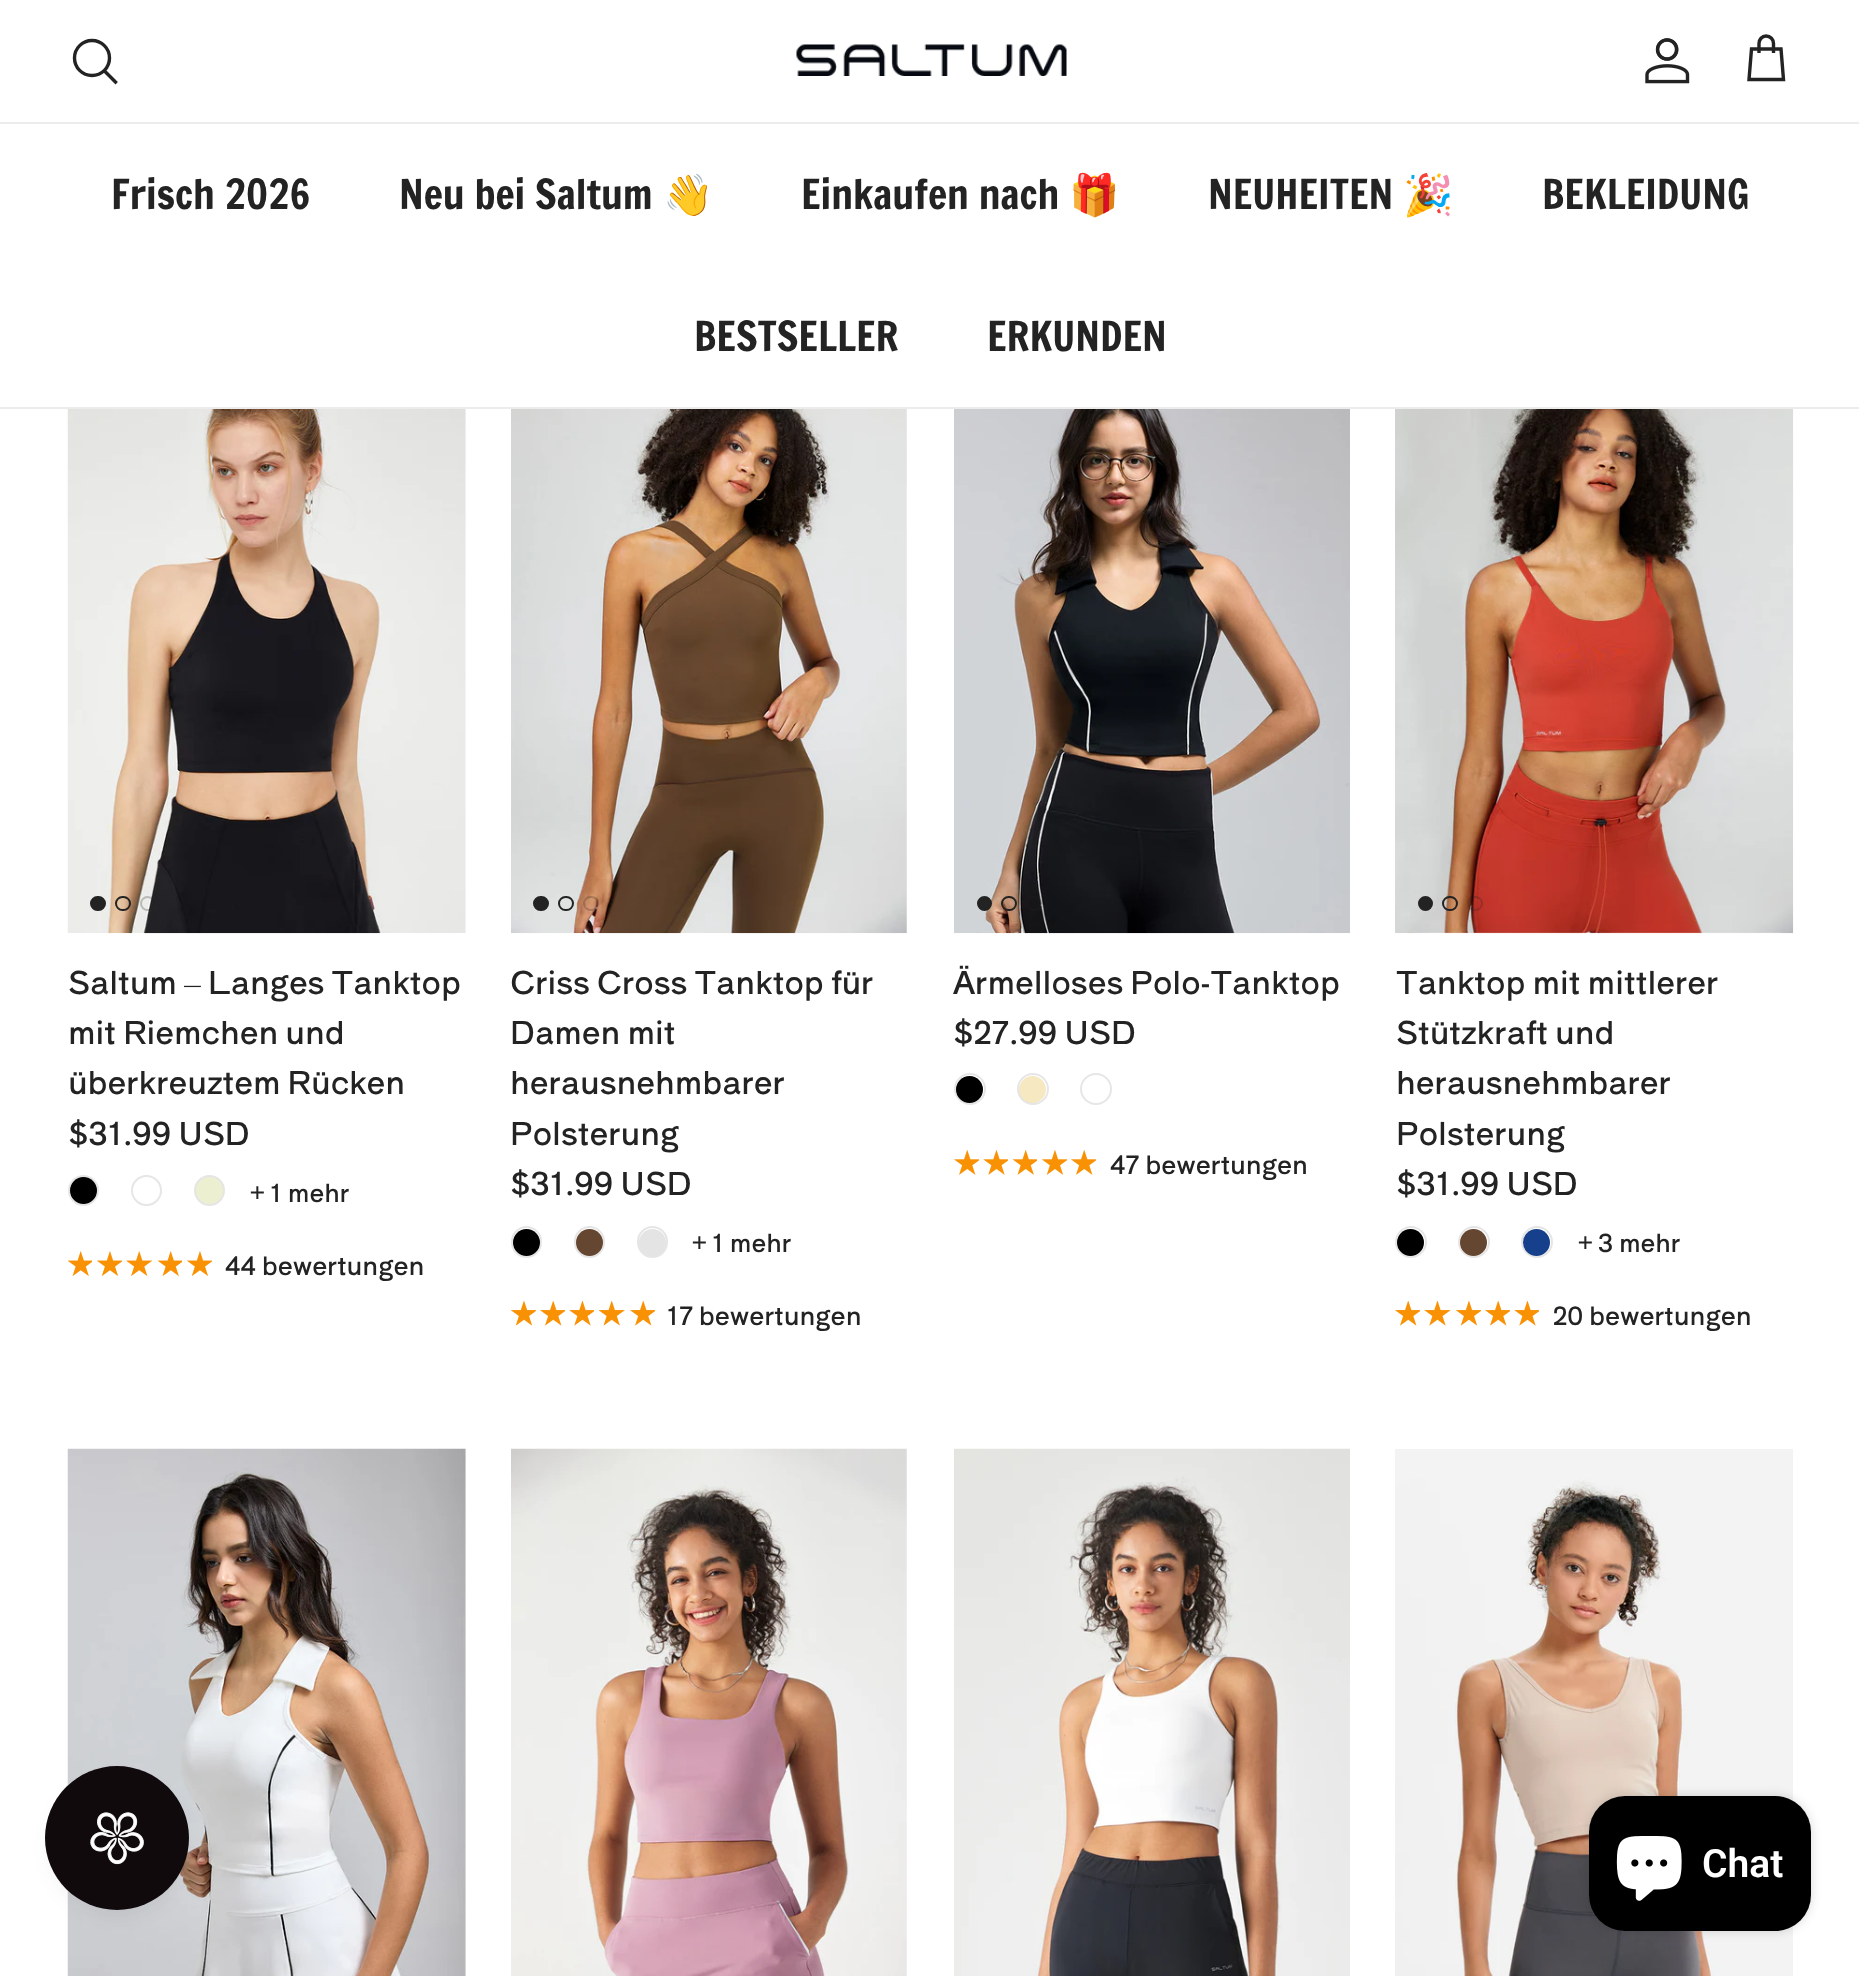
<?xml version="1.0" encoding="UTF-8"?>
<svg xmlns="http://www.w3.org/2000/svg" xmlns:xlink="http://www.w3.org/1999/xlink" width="1859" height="1976">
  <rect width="100%" height="100%" fill="#ffffff" />
  <rect y="122" width="1859" height="2" fill="#ececec" />
  <circle cx="92" cy="58" r="17.5" fill="none" stroke="#232323" stroke-width="3.4" />
  <path d="M 105.5 72 l 10 10" fill="none" stroke="#232323" stroke-width="3.4" stroke-linecap="square" />
  <image x="796" y="44" width="271" height="32" xlink:href="image1.png" />
  <image x="1645" y="38" width="45" height="46" xlink:href="image2.png" />
  <path d="M 1773.5 53 v -9.5 c 0 -4 -3 -7.5 -7.5 -7.5 c -4 0 -7 3.5 -7 7.5 v 9.5 m -7.5 -4 h 29.5 l 2.5 30.5 h -34.5 z" fill="none" stroke="#232323" stroke-width="3.4" />
  <rect y="407" width="1859" height="2" fill="#ececec" />
  <image x="67" y="409" width="399" height="525" xlink:href="image3.png" />
  <rect x="91" y="897" width="14" height="13" rx="6.5" fill="#232323" stroke="#232323" stroke-width="2" />
  <rect x="116" y="897" width="14" height="13" rx="6.5" fill="none" stroke="#232323" stroke-width="2" />
  <circle cx="147.5" cy="903.5" r="6.5" fill="none" stroke="#232323" stroke-opacity="0.25" stroke-width="2" />
  <circle cx="83.5" cy="1190.5" r="13.5" fill="#000000" />
  <circle cx="83.5" cy="1190.5" r="14.5" fill="none" stroke="#000000" stroke-opacity="0.1" stroke-width="2" />
  <circle cx="146.5" cy="1190.5" r="14.5" fill="none" stroke="#e6e6e6" stroke-width="2" />
  <circle cx="209.5" cy="1190.5" r="13.5" fill="#ecefd0" />
  <circle cx="209.5" cy="1190.5" r="14.5" fill="none" stroke="#000000" stroke-opacity="0.1" stroke-width="2" />
  <image x="68" y="1251" width="24" height="25" xlink:href="image4.png" />
  <image x="97" y="1251" width="25" height="25" xlink:href="image5.png" />
  <image x="126" y="1251" width="26" height="25" xlink:href="image6.png" />
  <image x="158" y="1251" width="24" height="25" xlink:href="image4.png" />
  <image x="187" y="1251" width="25" height="25" xlink:href="image5.png" />
  <image x="68" y="1251" width="24" height="25" xlink:href="image7.png" />
  <image x="97" y="1251" width="25" height="25" xlink:href="image8.png" />
  <image x="126" y="1251" width="27" height="25" xlink:href="image9.png" />
  <image x="158" y="1251" width="24" height="25" xlink:href="image7.png" />
  <image x="187" y="1251" width="25" height="25" xlink:href="image8.png" />
  <image x="511" y="409" width="396" height="525" xlink:href="image10.png" />
  <rect x="534" y="897" width="14" height="13" rx="6.5" fill="#232323" stroke="#232323" stroke-width="2" />
  <rect x="559" y="897" width="14" height="13" rx="6.5" fill="none" stroke="#232323" stroke-width="2" />
  <rect x="584" y="897" width="14" height="13" rx="6.5" fill="none" stroke="#232323" stroke-opacity="0.25" stroke-width="2" />
  <circle cx="526.5" cy="1242.5" r="13.5" fill="#000000" />
  <rect x="512" y="1227" width="29" height="30" rx="14.5" fill="none" stroke="#000000" stroke-opacity="0.1" stroke-width="2" />
  <circle cx="589.5" cy="1242.5" r="13.5" fill="#654631" />
  <rect x="575" y="1227" width="29" height="30" rx="14.5" fill="none" stroke="#000000" stroke-opacity="0.1" stroke-width="2" />
  <circle cx="652.5" cy="1242.5" r="13.5" fill="#e4e4e4" />
  <rect x="638" y="1227" width="29" height="30" rx="14.5" fill="none" stroke="#000000" stroke-opacity="0.1" stroke-width="2" />
  <image x="511" y="1301" width="25" height="25" xlink:href="image11.png" />
  <image x="540" y="1301" width="25" height="25" xlink:href="image12.png" />
  <image x="569" y="1301" width="25" height="25" xlink:href="image13.png" />
  <image x="599" y="1301" width="26" height="25" xlink:href="image14.png" />
  <image x="630" y="1301" width="25" height="25" xlink:href="image12.png" />
  <image x="511" y="1301" width="25" height="25" xlink:href="image15.png" />
  <image x="540" y="1301" width="25" height="25" xlink:href="image16.png" />
  <image x="569" y="1301" width="25" height="25" xlink:href="image17.png" />
  <image x="599" y="1301" width="26" height="25" xlink:href="image18.png" />
  <image x="630" y="1301" width="25" height="25" xlink:href="image16.png" />
  <image x="954" y="409" width="396" height="525" xlink:href="image19.png" />
  <circle cx="984.5" cy="903.5" r="6.5" fill="#232323" stroke="#232323" stroke-width="2" />
  <rect x="1002" y="897" width="14" height="13" rx="6.5" fill="none" stroke="#232323" stroke-width="2" />
  <rect x="1027" y="897" width="14" height="13" rx="6.5" fill="none" stroke="#232323" stroke-opacity="0.25" stroke-width="2" />
  <circle cx="969.5" cy="1089.5" r="13.5" fill="#000000" />
  <circle cx="970" cy="1089" r="15" fill="none" stroke="#000000" stroke-opacity="0.1" stroke-width="2" />
  <circle cx="1032.5" cy="1089.5" r="13.5" fill="#f6e9c1" />
  <circle cx="1033" cy="1089" r="15" fill="none" stroke="#000000" stroke-opacity="0.1" stroke-width="2" />
  <circle cx="1096" cy="1089" r="15" fill="none" stroke="#e6e6e6" stroke-width="2" />
  <image x="954" y="1150" width="25" height="25" xlink:href="image20.png" />
  <image x="983" y="1150" width="25" height="25" xlink:href="image21.png" />
  <image x="1013" y="1150" width="24" height="25" xlink:href="image22.png" />
  <image x="1042" y="1150" width="25" height="25" xlink:href="image23.png" />
  <image x="1071" y="1150" width="25" height="25" xlink:href="image20.png" />
  <image x="954" y="1150" width="25" height="25" xlink:href="image24.png" />
  <image x="983" y="1150" width="25" height="25" xlink:href="image25.png" />
  <image x="1013" y="1150" width="24" height="25" xlink:href="image26.png" />
  <image x="1042" y="1150" width="25" height="25" xlink:href="image27.png" />
  <image x="1071" y="1150" width="25" height="25" xlink:href="image24.png" />
  <image x="1395" y="409" width="399" height="525" xlink:href="image28.png" />
  <circle cx="1425.5" cy="903.5" r="6.5" fill="#232323" stroke="#232323" stroke-width="2" />
  <rect x="1443" y="897" width="14" height="13" rx="6.5" fill="none" stroke="#232323" stroke-width="2" />
  <rect x="1468" y="897" width="14" height="13" rx="6.5" fill="none" stroke="#232323" stroke-opacity="0.25" stroke-width="2" />
  <circle cx="1410.5" cy="1242.5" r="13.5" fill="#000000" />
  <circle cx="1411" cy="1242" r="15" fill="none" stroke="#000000" stroke-opacity="0.1" stroke-width="2" />
  <circle cx="1473.5" cy="1242.5" r="13.5" fill="#654631" />
  <circle cx="1474" cy="1242" r="15" fill="none" stroke="#000000" stroke-opacity="0.1" stroke-width="2" />
  <circle cx="1536.5" cy="1242.5" r="13.5" fill="#16408c" />
  <circle cx="1537" cy="1242" r="15" fill="none" stroke="#000000" stroke-opacity="0.1" stroke-width="2" />
  <image x="1395" y="1301" width="25" height="25" xlink:href="image12.png" />
  <image x="1424" y="1301" width="27" height="25" xlink:href="image29.png" />
  <image x="1456" y="1301" width="25" height="25" xlink:href="image11.png" />
  <image x="1485" y="1301" width="25" height="25" xlink:href="image12.png" />
  <image x="1514" y="1301" width="25" height="25" xlink:href="image13.png" />
  <image x="1395" y="1301" width="25" height="25" xlink:href="image16.png" />
  <image x="1424" y="1301" width="27" height="25" xlink:href="image30.png" />
  <image x="1456" y="1301" width="25" height="25" xlink:href="image15.png" />
  <image x="1485" y="1301" width="25" height="25" xlink:href="image16.png" />
  <image x="1514" y="1301" width="25" height="25" xlink:href="image17.png" />
  <image x="67" y="1448" width="399" height="528" xlink:href="image31.png" />
  <image x="511" y="1448" width="396" height="528" xlink:href="image32.png" />
  <image x="954" y="1448" width="396" height="528" xlink:href="image33.png" />
  <image x="1395" y="1449" width="398" height="527" xlink:href="image34.png" />
  <rect x="50" y="1780" width="135" height="135" rx="67.5" fill="#444444" fill-opacity="0.08" filter="blur(9px)" />
  <circle cx="117" cy="1838" r="72" fill="#100a0d" />
  <image x="90" y="1812" width="54" height="53" xlink:href="image35.png" />
  <rect x="1589" y="1796" width="222" height="135" rx="36" fill="#000000" fill-opacity="0.15" filter="blur(5.5px)" />
  <rect x="1589" y="1796" width="222" height="135" rx="36" fill="#000000" />
  <image x="1616" y="1836" width="66" height="65" xlink:href="image36.png" />
  <text x="111" y="209" style="font-family: Francois One; font-size: 40.5px; fill: #232323">Frisch 2026</text>
  <text x="399" y="209" style="font-family: Francois One; font-size: 40.5px; fill: #232323">Neu bei Saltum</text>
  <text x="663" y="209" style="font-family: Noto Color Emoji; font-size: 40.5px; fill: #232323">👋</text>
  <text x="801" y="209" style="font-family: Francois One; font-size: 40.5px; fill: #232323">Einkaufen nach</text>
  <text x="1069" y="209" style="font-family: Noto Color Emoji; font-size: 40.5px; fill: #232323">🎁</text>
  <text x="1208" y="209" style="font-family: Francois One; font-size: 40.5px; fill: #232323">NEUHEITEN</text>
  <text x="1403" y="209" style="font-family: Noto Color Emoji; font-size: 40.5px; fill: #232323">🎉</text>
  <text x="1542" y="209" style="font-family: Francois One; font-size: 40.5px; fill: #232323">BEKLEIDUNG</text>
  <text x="694" y="351" style="font-family: Francois One; font-size: 40.5px; fill: #232323">BESTSELLER</text>
  <text x="987" y="351" style="font-family: Francois One; font-size: 40.5px; fill: #232323">ERKUNDEN</text>
  <text x="68" y="994" style="font-family: Shippori Antique; font-size: 31.5px; fill: #232323">Saltum – Langes Tanktop</text>
  <text x="68" y="1044" style="font-family: Shippori Antique; font-size: 31.5px; fill: #232323">mit Riemchen und</text>
  <text x="68" y="1094" style="font-family: Shippori Antique; font-size: 31.5px; fill: #232323">überkreuztem Rücken</text>
  <text x="68" y="1145" style="font-family: Shippori Antique; font-size: 31.5px; fill: #232323">$31.99 USD</text>
  <text x="250" y="1202" style="font-family: Shippori Antique; font-size: 24.75px; fill: #232323">+ 1 mehr</text>
  <text x="225" y="1275" style="font-family: Shippori Antique; font-size: 25.25px; fill: #232323">44 bewertungen</text>
  <text x="510" y="994" style="font-family: Shippori Antique; font-size: 31.5px; fill: #232323">Criss Cross Tanktop für</text>
  <text x="510" y="1044" style="font-family: Shippori Antique; font-size: 31.5px; fill: #232323">Damen mit</text>
  <text x="510" y="1094" style="font-family: Shippori Antique; font-size: 31.5px; fill: #232323">herausnehmbarer</text>
  <text x="510" y="1145" style="font-family: Shippori Antique; font-size: 31.5px; fill: #232323">Polsterung</text>
  <text x="510" y="1195" style="font-family: Shippori Antique; font-size: 31.5px; fill: #232323">$31.99 USD</text>
  <text x="692" y="1252" style="font-family: Shippori Antique; font-size: 24.75px; fill: #232323">+ 1 mehr</text>
  <text x="667" y="1325" style="font-family: Shippori Antique; font-size: 25.25px; fill: #232323">17 bewertungen</text>
  <text x="953" y="994" style="font-family: Shippori Antique; font-size: 31.5px; fill: #232323">Ärmelloses Polo-Tanktop</text>
  <text x="953" y="1044" style="font-family: Shippori Antique; font-size: 31.5px; fill: #232323">$27.99 USD</text>
  <text x="1110" y="1174" style="font-family: Shippori Antique; font-size: 25.25px; fill: #232323">47 bewertungen</text>
  <text x="1396" y="994" style="font-family: Shippori Antique; font-size: 31.5px; fill: #232323">Tanktop mit mittlerer</text>
  <text x="1396" y="1044" style="font-family: Shippori Antique; font-size: 31.5px; fill: #232323">Stützkraft und</text>
  <text x="1396" y="1094" style="font-family: Shippori Antique; font-size: 31.5px; fill: #232323">herausnehmbarer</text>
  <text x="1396" y="1145" style="font-family: Shippori Antique; font-size: 31.5px; fill: #232323">Polsterung</text>
  <text x="1396" y="1195" style="font-family: Shippori Antique; font-size: 31.5px; fill: #232323">$31.99 USD</text>
  <text x="1578" y="1252" style="font-family: Shippori Antique; font-size: 24.75px; fill: #232323">+ 3 mehr</text>
  <text x="1553" y="1325" style="font-family: Shippori Antique; font-size: 25.25px; fill: #232323">20 bewertungen</text>
  <text x="1702" y="1877" style="font-family: Roboto; font-size: 39px; font-weight: 600; fill: #ffffff">Chat</text>
</svg>
